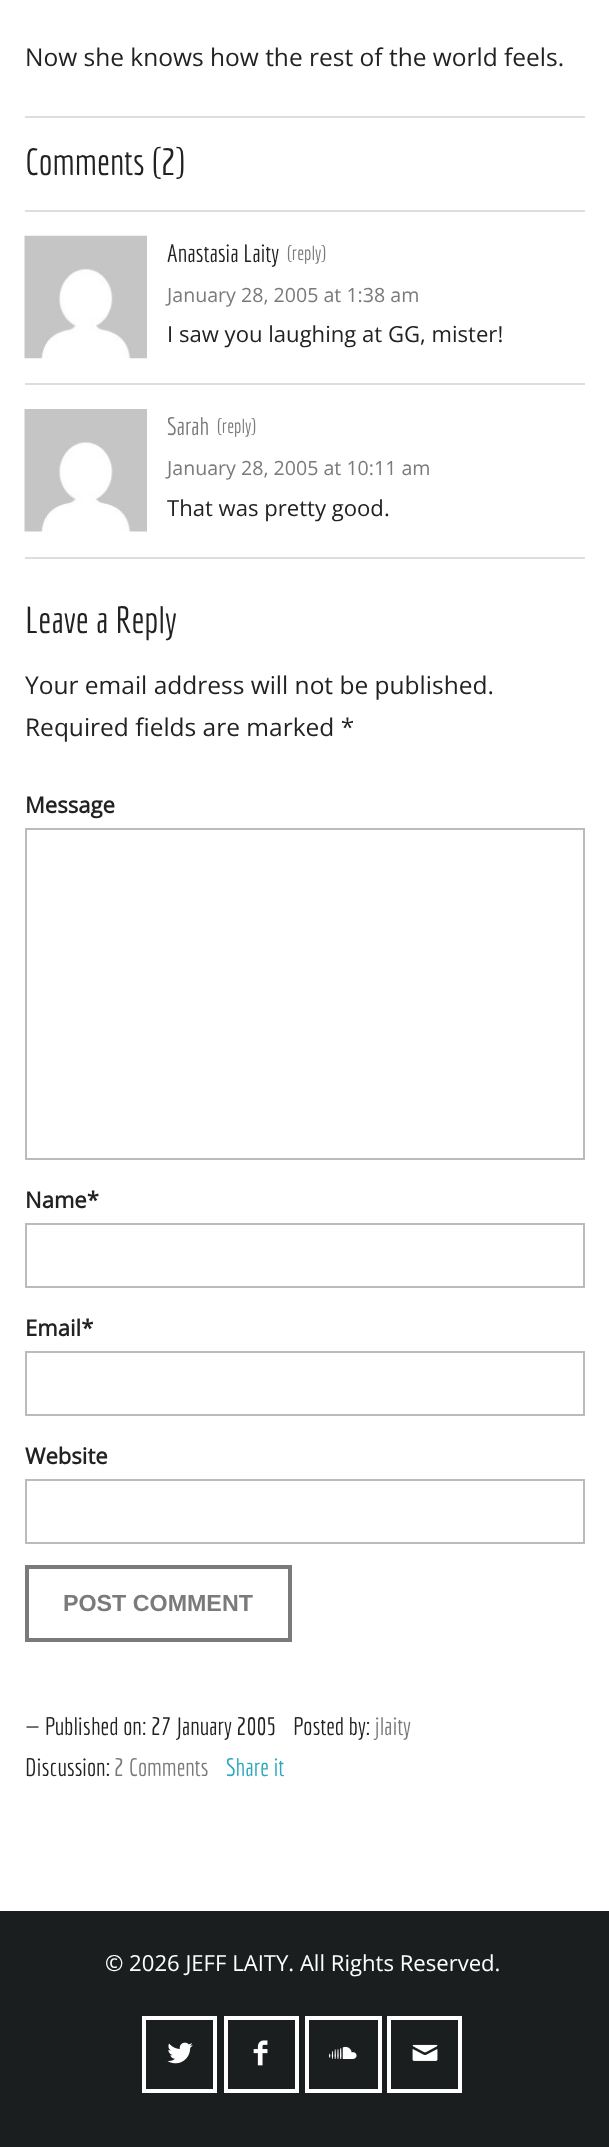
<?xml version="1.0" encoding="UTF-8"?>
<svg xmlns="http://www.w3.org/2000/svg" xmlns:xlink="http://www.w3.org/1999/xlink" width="609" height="2147">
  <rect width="100%" height="100%" fill="#ffffff" />
  <rect x="25" y="116" width="560" height="2" fill="#dddddd" />
  <rect x="25" y="557" width="560" height="2" fill="#dddddd" />
  <rect x="25" y="210" width="560" height="2" fill="#dddddd" />
  <image x="24" y="235" width="123" height="124" xlink:href="image1.png" />
  <rect x="25" y="383" width="560" height="2" fill="#dddddd" />
  <image x="24" y="409" width="123" height="123" xlink:href="image2.png" />
  <rect x="26" y="829" width="558" height="330" fill="none" stroke="#bbbbbb" stroke-width="2" />
  <rect x="26" y="1224" width="558" height="63" fill="none" stroke="#bbbbbb" stroke-width="2" />
  <rect x="26" y="1352" width="558" height="63" fill="none" stroke="#bbbbbb" stroke-width="2" />
  <rect x="26" y="1480" width="558" height="63" fill="none" stroke="#bbbbbb" stroke-width="2" />
  <rect x="27" y="1567" width="263" height="73" fill="none" stroke="#7a7a7a" stroke-width="4" />
  <rect y="1911" width="609" height="236" fill="#1b1e1f" />
  <rect x="144" y="2018" width="71" height="73" fill="none" stroke="#ffffff" stroke-width="4" />
  <image x="167" y="2042" width="26" height="22" xlink:href="image3.png" />
  <rect x="226" y="2018" width="71" height="73" fill="none" stroke="#ffffff" stroke-width="4" />
  <image x="253" y="2040" width="15" height="26" xlink:href="image4.png" />
  <rect x="307" y="2018" width="73" height="73" fill="none" stroke="#ffffff" stroke-width="4" />
  <image x="329" y="2046" width="28" height="13" xlink:href="image5.png" />
  <rect x="389" y="2018" width="71" height="73" fill="none" stroke="#ffffff" stroke-width="4" />
  <image x="412" y="2044" width="26" height="17" xlink:href="image6.png" />
  <text x="25" y="66" style="font-family: Open Sans; font-size: 24.5px; fill: #222222">Now she knows how the rest of the world feels.</text>
  <text x="25" y="175" style="font-family: Economica; font-size: 36.75px; fill: #222222">Comments (2)</text>
  <text x="167" y="262" style="font-family: Economica; font-size: 24.5px; fill: #222222">Anastasia Laity</text>
  <text x="287" y="260" style="font-family: Economica; font-size: 19.6px; fill: #7a7a7a">(reply)</text>
  <text x="167" y="302" style="font-family: Open Sans; font-size: 19.6px; fill: #7a7a7a">January 28, 2005 at 1:38 am</text>
  <text x="167" y="342" style="font-family: Open Sans; font-size: 22.1px; fill: #222222">I saw you laughing at GG, mister!</text>
  <text x="167" y="435" style="font-family: Economica; font-size: 24.5px; fill: #7a7a7a">Sarah</text>
  <text x="217" y="433" style="font-family: Economica; font-size: 19.6px; fill: #7a7a7a">(reply)</text>
  <text x="167" y="475" style="font-family: Open Sans; font-size: 19.6px; fill: #7a7a7a">January 28, 2005 at 10:11 am</text>
  <text x="167" y="516" style="font-family: Open Sans; font-size: 22.1px; fill: #222222">That was pretty good.</text>
  <text x="25" y="633" style="font-family: Economica; font-size: 36.75px; fill: #222222">Leave a Reply</text>
  <text x="25" y="694" style="font-family: Open Sans; font-size: 24.5px; fill: #222222">Your email address will not be published.</text>
  <text x="25" y="736" style="font-family: Open Sans; font-size: 24.5px; fill: #222222">Required fields are marked *</text>
  <text x="25" y="813" style="font-family: Open Sans; font-size: 22.1px; font-weight: bold; fill: #222222">Message</text>
  <text x="25" y="1208" style="font-family: Open Sans; font-size: 22.1px; font-weight: bold; fill: #222222">Name*</text>
  <text x="25" y="1336" style="font-family: Open Sans; font-size: 22.1px; font-weight: bold; fill: #222222">Email*</text>
  <text x="25" y="1464" style="font-family: Open Sans; font-size: 22.1px; font-weight: bold; fill: #222222">Website</text>
  <text x="63" y="1611" style="font-family: Liberation Sans; font-size: 23.25px; font-weight: bold; fill: #7a7a7a">POST COMMENT</text>
  <text x="25" y="1735" style="font-family: Economica; font-size: 24.5px; fill: #222222">— Published on: 27 January 2005</text>
  <text x="293" y="1735" style="font-family: Economica; font-size: 24.5px; fill: #222222">Posted by:</text>
  <text x="375" y="1735" style="font-family: Economica; font-size: 24.5px; fill: #7a7a7a">jlaity</text>
  <text x="25" y="1776" style="font-family: Economica; font-size: 24.5px; fill: #222222">Discussion:</text>
  <text x="114" y="1776" style="font-family: Economica; font-size: 24.5px; fill: #7a7a7a">2 Comments</text>
  <text x="226" y="1776" style="font-family: Economica; font-size: 24.5px; fill: #2ba8bd">Share it</text>
  <text x="105" y="1971" style="font-family: Open Sans; font-size: 22.1px; fill: #ffffff">© 2026 JEFF LAITY. All Rights Reserved.</text>
</svg>
